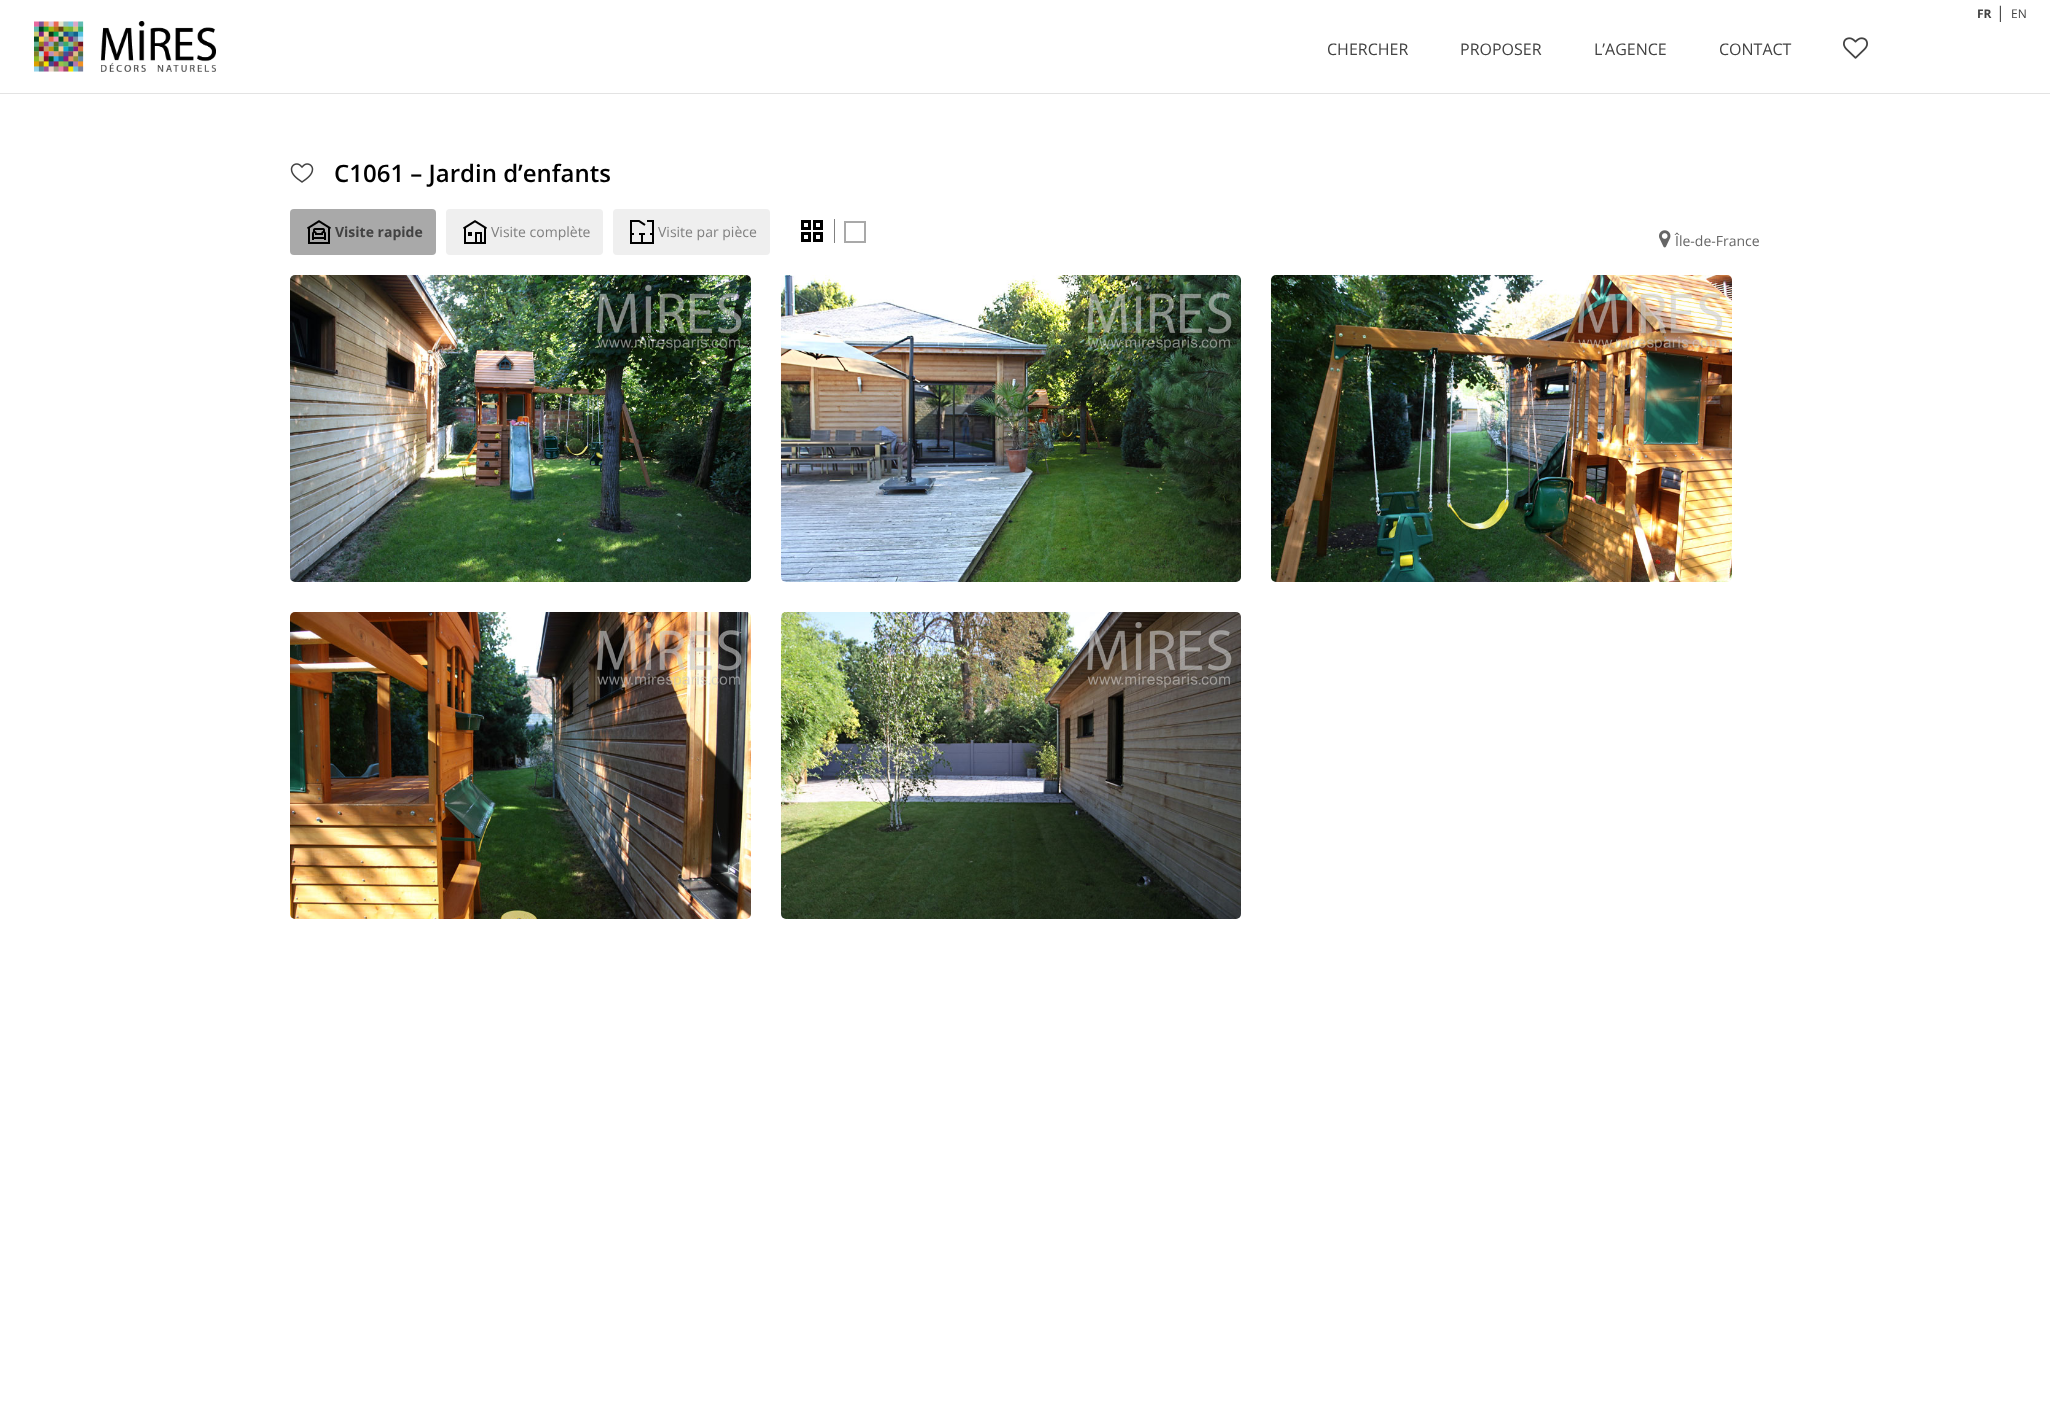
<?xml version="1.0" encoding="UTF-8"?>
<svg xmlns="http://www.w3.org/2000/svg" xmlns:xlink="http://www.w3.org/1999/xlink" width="2050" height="1416">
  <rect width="100%" height="100%" fill="#ffffff" />
  <rect y="93" width="2050" height="1" fill="#e3e3e3" />
  <image x="34" y="21" width="182" height="51" xlink:href="image1.png" />
  <image x="1843" y="37" width="25" height="22" xlink:href="image2.png" />
  <image x="290" y="163" width="24" height="20" xlink:href="image3.png" />
  <rect x="290" y="209" width="146" height="46" rx="4" fill="#a9a9a9" />
  <image x="307" y="220" width="24" height="24" xlink:href="image4.png" />
  <rect x="446" y="209" width="157" height="46" rx="4" fill="#efefef" />
  <image x="463" y="220" width="24" height="24" xlink:href="image5.png" />
  <rect x="613" y="209" width="157" height="46" rx="4" fill="#efefef" />
  <image x="630" y="220" width="24" height="24" xlink:href="image6.png" />
  <image x="801" y="220" width="22" height="22" xlink:href="image7.png" />
  <rect x="834" y="219" width="1" height="24" fill="#808080" />
  <image x="844" y="221" width="22" height="22" xlink:href="image8.png" />
  <image x="1659" y="230" width="12" height="18" xlink:href="image9.png" />
  <image x="290" y="275" width="461" height="307" xlink:href="image10.png" />
  <image x="781" y="275" width="460" height="307" xlink:href="image11.png" />
  <image x="1271" y="275" width="461" height="307" xlink:href="image12.png" />
  <image x="290" y="612" width="461" height="307" xlink:href="image13.png" />
  <image x="781" y="612" width="460" height="307" xlink:href="image14.png" />
  <text x="1977" y="18" style="font-family: Open Sans; font-size: 12px; font-weight: bold; fill: #424242">FR</text>
  <text x="1996" y="18" style="font-family: Open Sans; font-size: 16px; fill: #424242">|</text>
  <text x="2011" y="18" style="font-family: Open Sans; font-size: 12px; fill: #424242">EN</text>
  <text x="1327" y="55" style="font-family: Open Sans; font-size: 16px; fill: #424242">CHERCHER</text>
  <text x="1460" y="55" style="font-family: Open Sans; font-size: 16px; fill: #424242">PROPOSER</text>
  <text x="1594" y="55" style="font-family: Open Sans; font-size: 16px; fill: #424242">L’AGENCE</text>
  <text x="1719" y="55" style="font-family: Open Sans; font-size: 16px; fill: #424242">CONTACT</text>
  <text x="334" y="182" style="font-family: Open Sans; font-size: 24px; font-weight: 600; fill: #000000">C1061 – Jardin d’enfants</text>
  <text x="335" y="237" style="font-family: Open Sans; font-size: 14px; font-weight: bold; fill: #424242">Visite rapide</text>
  <text x="491" y="237" style="font-family: Open Sans; font-size: 14px; fill: #808080">Visite complète</text>
  <text x="658" y="237" style="font-family: Open Sans; font-size: 14px; fill: #808080">Visite par pièce</text>
  <text x="1675" y="246" style="font-family: Open Sans; font-size: 14px; fill: #666666">Île-de-France</text>
</svg>
